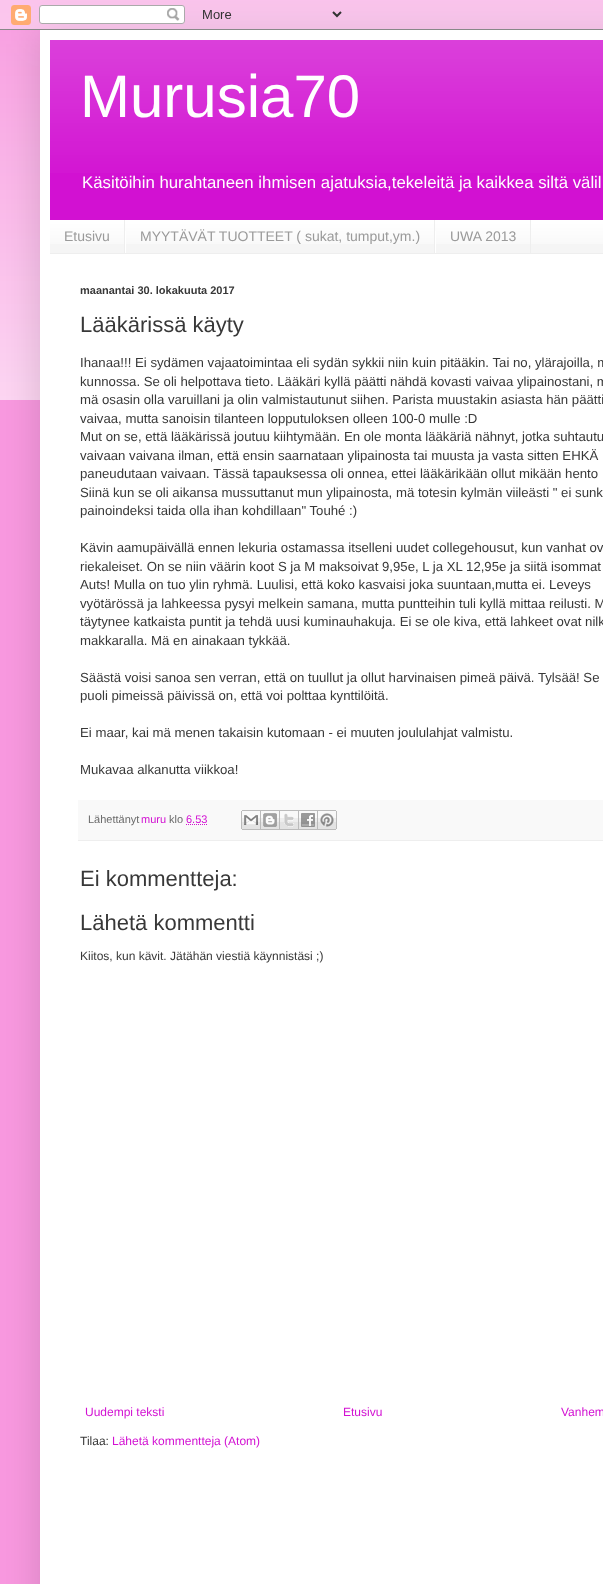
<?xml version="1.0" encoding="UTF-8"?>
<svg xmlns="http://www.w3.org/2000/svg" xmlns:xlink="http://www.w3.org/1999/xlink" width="603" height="1584">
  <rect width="100%" height="100%" fill="#f999e0" />
  <image x="0" y="0" width="603" height="400" xlink:href="image1.png" />
  <rect x="40" y="30" width="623" height="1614" fill="#000000" fill-opacity="0.15" filter="blur(20px)" />
  <image x="0" y="0" width="603" height="30" xlink:href="image2.png" />
  <rect x="40" y="30" width="563" height="1554" fill="#ffffff" />
  <rect x="50" y="40" width="553" height="180" fill="#d211d2" />
  <image x="50" y="40" width="553" height="133" xlink:href="image3.png" />
  <rect x="50" y="221" width="553" height="32" fill="#f5f5f5" />
  <image x="50" y="220" width="553" height="24" xlink:href="image4.png" />
  <rect x="50" y="253" width="553" height="1" fill="#eeeeee" />
  <rect x="124" y="220" width="1" height="33" fill="#eeeeee" />
  <rect x="434" y="220" width="1" height="33" fill="#eeeeee" />
  <rect x="125" y="231" width="1" height="22" fill="#ffffff" />
  <rect x="530" y="220" width="1" height="33" fill="#eeeeee" />
  <rect x="435" y="231" width="1" height="22" fill="#ffffff" />
  <rect x="78" y="800" width="525" height="40" fill="#f9f9f9" />
  <rect x="78" y="840" width="525" height="1" fill="#eeeeee" />
  <path d="M 186 824.5 h 21" fill="none" stroke="#d211d2" stroke-dasharray="1 1" />
  <image x="241" y="810" width="20" height="20" xlink:href="image5.png" />
  <image x="261" y="810" width="19" height="20" xlink:href="image6.png" />
  <image x="280" y="810" width="19" height="20" xlink:href="image7.png" />
  <image x="299" y="810" width="19" height="20" xlink:href="image8.png" />
  <image x="318" y="810" width="19" height="20" xlink:href="image9.png" />
  <text x="80" y="117" style="font-family: Liberation Sans; font-size: 60px; fill: #ffffff">Murusia70</text>
  <text x="82" y="188" style="font-family: Liberation Sans; font-size: 16.8px; fill: #ffffff">Käsitöihin hurahtaneen ihmisen ajatuksia,tekeleitä ja kaikkea siltä välil</text>
  <text x="64" y="241" style="font-family: Liberation Sans; font-size: 14px; fill: #9a9a9a">Etusivu</text>
  <text x="140" y="241" style="font-family: Liberation Sans; font-size: 14px; fill: #9a9a9a">MYYTÄVÄT TUOTTEET ( sukat, tumput,ym.)</text>
  <text x="450" y="241" style="font-family: Liberation Sans; font-size: 14px; fill: #9a9a9a">UWA 2013</text>
  <text x="80" y="294" style="font-family: Liberation Sans; font-size: 11px; font-weight: bold; fill: #383838">maanantai 30. lokakuuta 2017</text>
  <text x="80" y="332" style="font-family: Liberation Sans; font-size: 22px; fill: #383838">Lääkärissä käyty</text>
  <text x="80" y="367" style="font-family: Liberation Sans; font-size: 13.2px; fill: #383838">Ihanaa!!! Ei sydämen vajaatoimintaa eli sydän sykkii niin kuin pitääkin. Tai no, ylärajoilla, m</text>
  <text x="80" y="386" style="font-family: Liberation Sans; font-size: 13.2px; fill: #383838">kunnossa. Se oli helpottava tieto. Lääkäri kyllä päätti nähdä kovasti vaivaa ylipainostani, m</text>
  <text x="80" y="404" style="font-family: Liberation Sans; font-size: 13.2px; fill: #383838">mä osasin olla varuillani ja olin valmistautunut siihen. Parista muustakin asiasta hän päätti</text>
  <text x="80" y="423" style="font-family: Liberation Sans; font-size: 13.2px; fill: #383838">vaivaa, mutta sanoisin tilanteen lopputuloksen olleen 100-0 mulle :D</text>
  <text x="80" y="441" style="font-family: Liberation Sans; font-size: 13.2px; fill: #383838">Mut on se, että lääkärissä joutuu kiihtymään. En ole monta lääkäriä nähnyt, jotka suhtautu</text>
  <text x="80" y="460" style="font-family: Liberation Sans; font-size: 13.2px; fill: #383838">vaivaan vaivana ilman, että ensin saarnataan ylipainosta tai muusta ja vasta sitten EHKÄ</text>
  <text x="80" y="478" style="font-family: Liberation Sans; font-size: 13.2px; fill: #383838">paneudutaan vaivaan. Tässä tapauksessa oli onnea, ettei lääkärikään ollut mikään hento</text>
  <text x="80" y="497" style="font-family: Liberation Sans; font-size: 13.2px; fill: #383838">Siinä kun se oli aikansa mussuttanut mun ylipainosta, mä totesin kylmän viileästi " ei sunk</text>
  <text x="80" y="515" style="font-family: Liberation Sans; font-size: 13.2px; fill: #383838">painoindeksi taida olla ihan kohdillaan" Touhé :)</text>
  <text x="80" y="552" style="font-family: Liberation Sans; font-size: 13.2px; fill: #383838">Kävin aamupäivällä ennen lekuria ostamassa itselleni uudet collegehousut, kun vanhat ov</text>
  <text x="80" y="571" style="font-family: Liberation Sans; font-size: 13.2px; fill: #383838">riekaleiset. On se niin väärin koot S ja M maksoivat 9,95e, L ja XL 12,95e ja siitä isommat</text>
  <text x="80" y="589" style="font-family: Liberation Sans; font-size: 13.2px; fill: #383838">Auts! Mulla on tuo ylin ryhmä. Luulisi, että koko kasvaisi joka suuntaan,mutta ei. Leveys</text>
  <text x="80" y="608" style="font-family: Liberation Sans; font-size: 13.2px; fill: #383838">vyötärössä ja lahkeessa pysyi melkein samana, mutta puntteihin tuli kyllä mittaa reilusti. M</text>
  <text x="80" y="626" style="font-family: Liberation Sans; font-size: 13.2px; fill: #383838">täytynee katkaista puntit ja tehdä uusi kuminauhakuja. Ei se ole kiva, että lahkeet ovat nilk</text>
  <text x="80" y="645" style="font-family: Liberation Sans; font-size: 13.2px; fill: #383838">makkaralla. Mä en ainakaan tykkää.</text>
  <text x="80" y="682" style="font-family: Liberation Sans; font-size: 13.2px; fill: #383838">Säästä voisi sanoa sen verran, että on tuullut ja ollut harvinaisen pimeä päivä. Tylsää! Se</text>
  <text x="80" y="700" style="font-family: Liberation Sans; font-size: 13.2px; fill: #383838">puoli pimeissä päivissä on, että voi polttaa kynttilöitä.</text>
  <text x="80" y="737" style="font-family: Liberation Sans; font-size: 13.2px; fill: #383838">Ei maar, kai mä menen takaisin kutomaan - ei muuten joululahjat valmistu.</text>
  <text x="80" y="774" style="font-family: Liberation Sans; font-size: 13.2px; fill: #383838">Mukavaa alkanutta viikkoa!</text>
  <text x="88" y="823" style="font-family: Liberation Sans; font-size: 11px; fill: #6a6a6a">Lähettänyt</text>
  <text x="141" y="823" style="font-family: Liberation Sans; font-size: 11px; fill: #d211d2">muru</text>
  <text x="169" y="823" style="font-family: Liberation Sans; font-size: 11px; fill: #6a6a6a">klo</text>
  <text x="186" y="823" style="font-family: Liberation Sans; font-size: 11px; fill: #d211d2">6.53</text>
  <text x="80" y="886" style="font-family: Liberation Sans; font-size: 22px; fill: #383838">Ei kommentteja:</text>
  <text x="80" y="930" style="font-family: Liberation Sans; font-size: 22px; fill: #383838">Lähetä kommentti</text>
  <text x="80" y="960" style="font-family: Liberation Sans; font-size: 12px; fill: #383838">Kiitos, kun kävit. Jätähän viestiä käynnistäsi ;)</text>
  <text x="85" y="1416" style="font-family: Liberation Sans; font-size: 12px; fill: #d211d2">Uudempi teksti</text>
  <text x="343" y="1416" style="font-family: Liberation Sans; font-size: 12px; fill: #d211d2">Etusivu</text>
  <text x="561" y="1416" style="font-family: Liberation Sans; font-size: 12px; fill: #d211d2">Vanhem</text>
  <text x="80" y="1445" style="font-family: Liberation Sans; font-size: 12px; fill: #383838">Tilaa:</text>
  <text x="112" y="1445" style="font-family: Liberation Sans; font-size: 12px; fill: #d211d2">Lähetä kommentteja (Atom)</text>
</svg>
